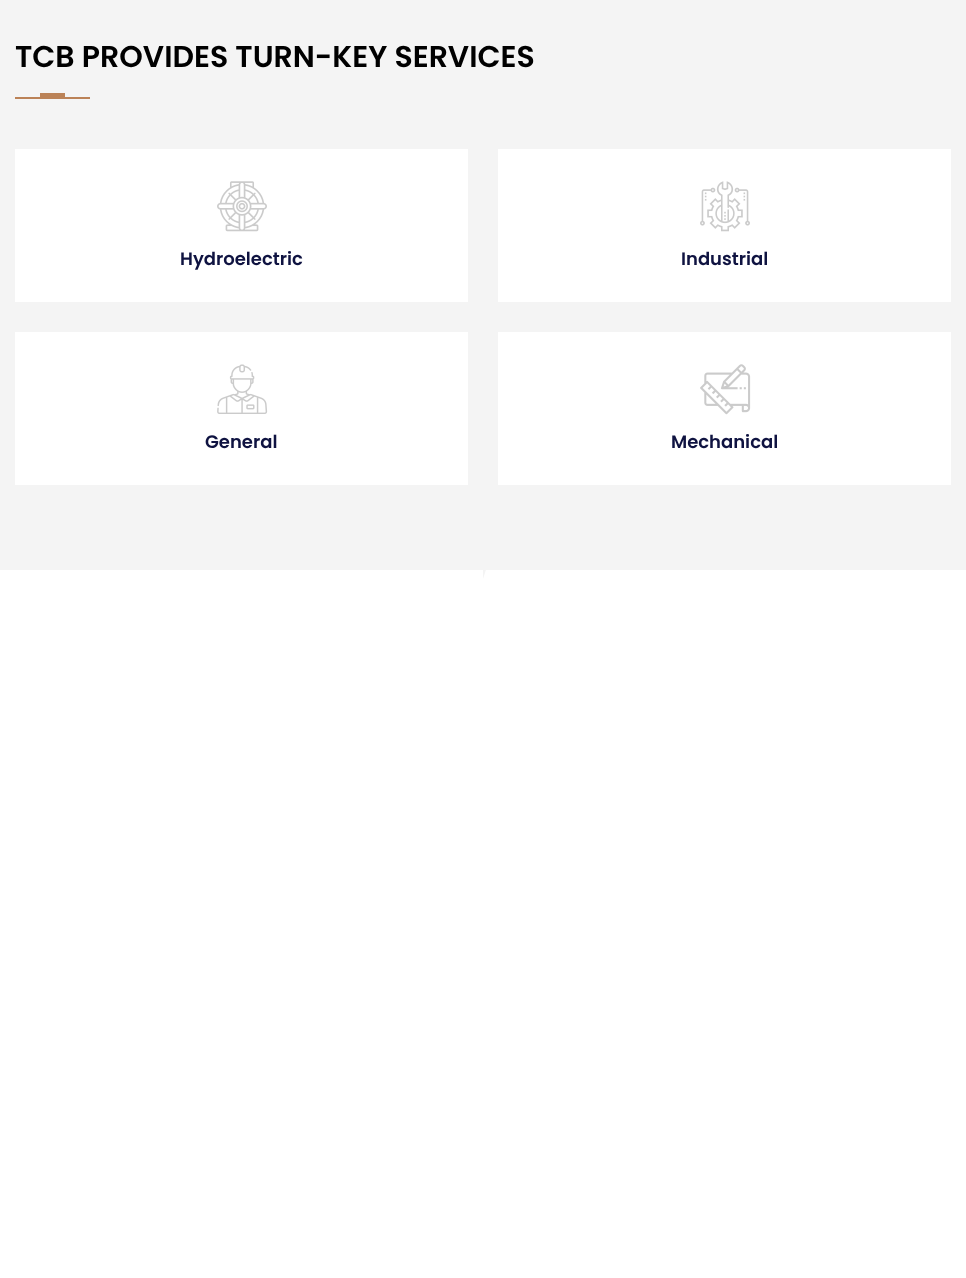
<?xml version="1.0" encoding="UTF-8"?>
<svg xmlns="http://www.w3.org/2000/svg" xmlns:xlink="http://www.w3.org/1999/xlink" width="966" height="1278">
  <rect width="100%" height="100%" fill="#ffffff" />
  <rect width="966" height="570" fill="#f4f4f4" />
  <path d="M 483 -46 h 200 l -200 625 z" fill="#f4f4f4" />
  <rect x="40" y="93" width="25" height="4" fill="#bb8257" />
  <rect x="15" y="97" width="75" height="2" fill="#bb8257" />
  <rect x="15" y="149" width="453" height="153" fill="#ffffff" />
  <image x="217" y="181" width="50" height="51" xlink:href="image1.png" />
  <rect x="498" y="149" width="453" height="153" fill="#ffffff" />
  <image x="700" y="181" width="50" height="51" xlink:href="image2.png" />
  <rect x="15" y="332" width="453" height="153" fill="#ffffff" />
  <image x="217" y="364" width="51" height="50" xlink:href="image3.png" />
  <rect x="498" y="332" width="453" height="153" fill="#ffffff" />
  <image x="700" y="364" width="51" height="51" xlink:href="image4.png" />
  <text x="15" y="67" style="font-family: Poppins; font-size: 30px; font-weight: 600; fill: #000000">TCB PROVIDES TURN-KEY SERVICES</text>
  <text x="180" y="265" style="font-family: Poppins; font-size: 18px; font-weight: 600; fill: #0f1341">Hydroelectric</text>
  <text x="681" y="265" style="font-family: Poppins; font-size: 18px; font-weight: 600; fill: #0f1341">Industrial</text>
  <text x="205" y="448" style="font-family: Poppins; font-size: 18px; font-weight: 600; fill: #0f1341">General</text>
  <text x="671" y="448" style="font-family: Poppins; font-size: 18px; font-weight: 600; fill: #0f1341">Mechanical</text>
</svg>
